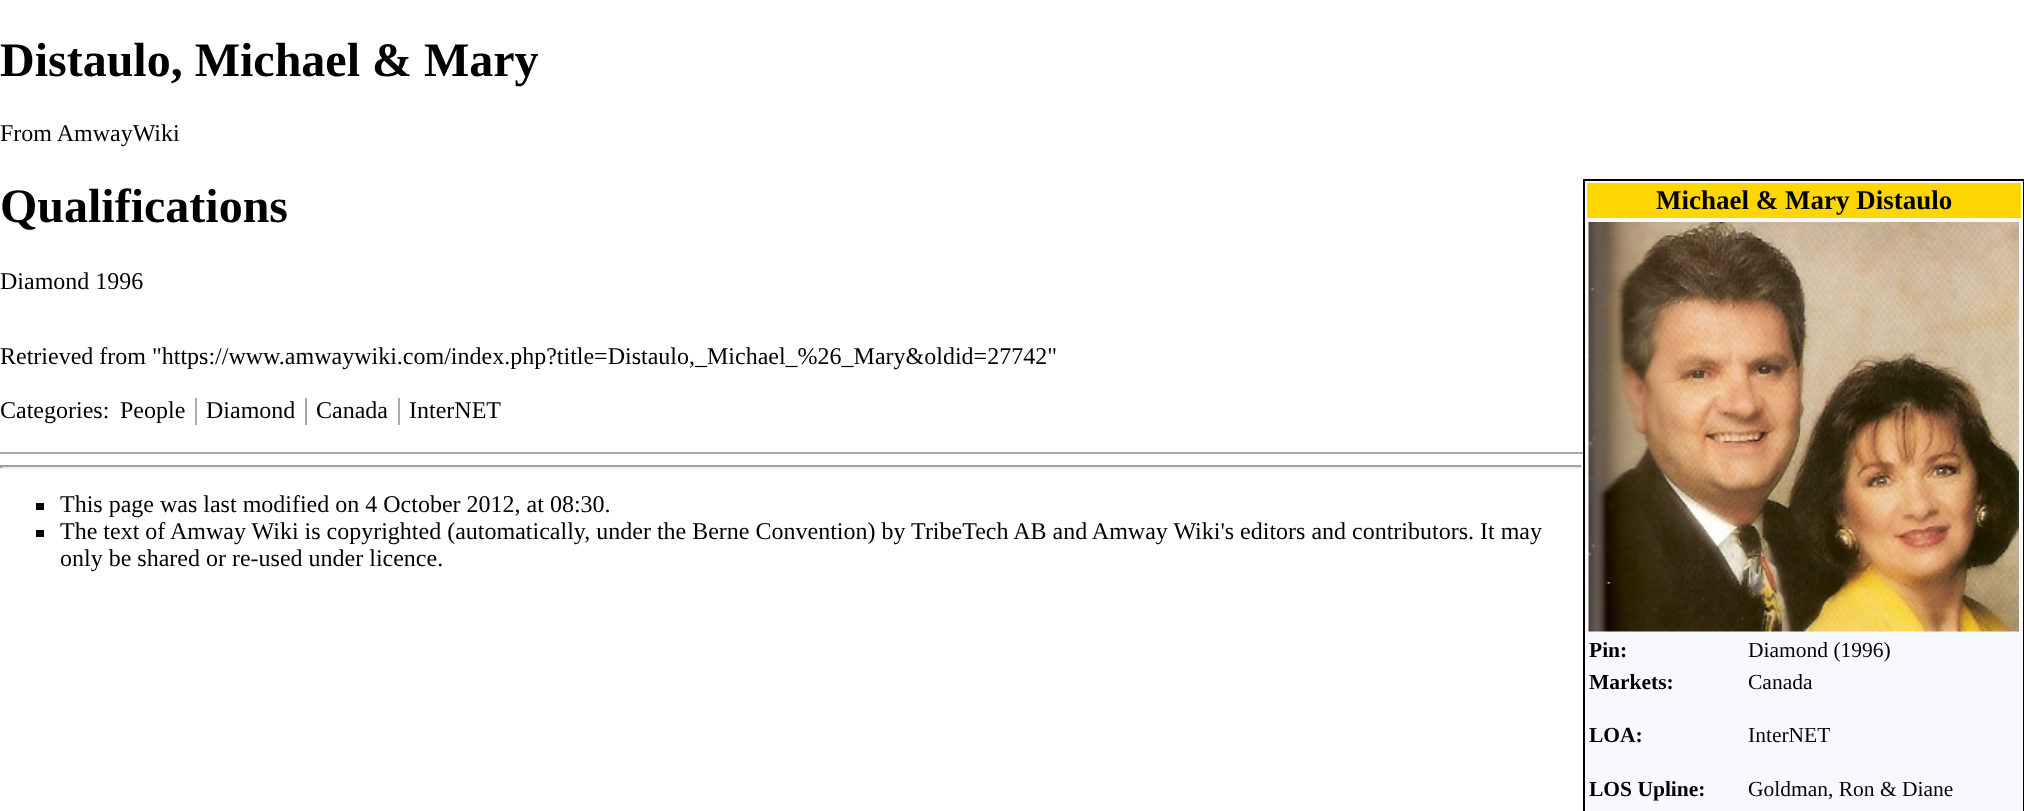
<?xml version="1.0" encoding="UTF-8"?>
<svg xmlns="http://www.w3.org/2000/svg" xmlns:xlink="http://www.w3.org/1999/xlink" width="2024" height="811">
  <rect width="100%" height="100%" fill="#ffffff" />
  <rect x="1584" y="180" width="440" height="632" fill="#f8f8ff" stroke="#000000" stroke-width="2" />
  <rect x="1587" y="183" width="434" height="35" fill="#ffd700" />
  <image x="1588" y="222" width="431" height="410" xlink:href="image1.png" />
  <rect x="195" y="398" width="2" height="27" fill="#aaaaaa" />
  <rect x="305" y="398" width="2" height="27" fill="#aaaaaa" />
  <rect x="398" y="398" width="2" height="27" fill="#aaaaaa" />
  <rect y="452" width="1583" height="2" fill="#aaaaaa" />
  <rect y="465" width="1583" height="2" fill="#9f9f9f" />
  <rect x="1581" y="465" width="2" height="3" fill="#eeeeee" />
  <rect y="467" width="1583" height="2" fill="#eeeeee" />
  <rect y="465" width="2" height="3" fill="#9f9f9f" />
  <rect x="36" y="503" width="8" height="7" fill="#000000" />
  <rect x="36" y="530" width="8" height="7" fill="#000000" />
  <text x="0" y="76" style="font-family: Liberation Serif; font-size: 48px; font-weight: bold; fill: #000000">Distaulo, Michael &amp; Mary</text>
  <text x="0" y="141" style="font-family: Liberation Serif; font-size: 24px; fill: #000000">From AmwayWiki</text>
  <text x="0" y="222" style="font-family: Liberation Serif; font-size: 48px; font-weight: bold; fill: #000000">Qualifications</text>
  <text x="1656" y="209" style="font-family: Liberation Serif; font-size: 27px; font-weight: bold; fill: #000000">Michael &amp; Mary Distaulo</text>
  <text x="1589" y="657" style="font-family: Liberation Serif; font-size: 21.5px; font-weight: bold; fill: #000000">Pin:</text>
  <text x="1748" y="657" style="font-family: Liberation Serif; font-size: 21.5px; fill: #000000">Diamond (1996)</text>
  <text x="1589" y="689" style="font-family: Liberation Serif; font-size: 21.5px; font-weight: bold; fill: #000000">Markets:</text>
  <text x="1748" y="689" style="font-family: Liberation Serif; font-size: 21.5px; fill: #000000">Canada</text>
  <text x="1589" y="742" style="font-family: Liberation Serif; font-size: 21.5px; font-weight: bold; fill: #000000">LOA:</text>
  <text x="1748" y="742" style="font-family: Liberation Serif; font-size: 21.5px; fill: #000000">InterNET</text>
  <text x="1589" y="796" style="font-family: Liberation Serif; font-size: 21.5px; font-weight: bold; fill: #000000">LOS Upline:</text>
  <text x="1748" y="796" style="font-family: Liberation Serif; font-size: 21.5px; fill: #000000">Goldman, Ron &amp; Diane</text>
  <text x="0" y="289" style="font-family: Liberation Serif; font-size: 24px; fill: #000000">Diamond 1996</text>
  <text x="0" y="364" style="font-family: Liberation Serif; font-size: 24px; fill: #000000">Retrieved from "https://www.amwaywiki.com/index.php?title=Distaulo,_Michael_%26_Mary&amp;oldid=27742"</text>
  <text x="0" y="418" style="font-family: Liberation Serif; font-size: 24px; fill: #000000">Categories:</text>
  <text x="120" y="418" style="font-family: Liberation Serif; font-size: 24px; fill: #000000">People</text>
  <text x="206" y="418" style="font-family: Liberation Serif; font-size: 24px; fill: #000000">Diamond</text>
  <text x="316" y="418" style="font-family: Liberation Serif; font-size: 24px; fill: #000000">Canada</text>
  <text x="409" y="418" style="font-family: Liberation Serif; font-size: 24px; fill: #000000">InterNET</text>
  <text x="60" y="512" style="font-family: Liberation Serif; font-size: 24px; fill: #000000">This page was last modified on 4 October 2012, at 08:30.</text>
  <text x="60" y="539" style="font-family: Liberation Serif; font-size: 24px; fill: #000000">The text of Amway Wiki is copyrighted (automatically, under the Berne Convention) by TribeTech AB and Amway Wiki's editors and contributors. It may</text>
  <text x="60" y="566" style="font-family: Liberation Serif; font-size: 24px; fill: #000000">only be shared or re-used under licence.</text>
</svg>
